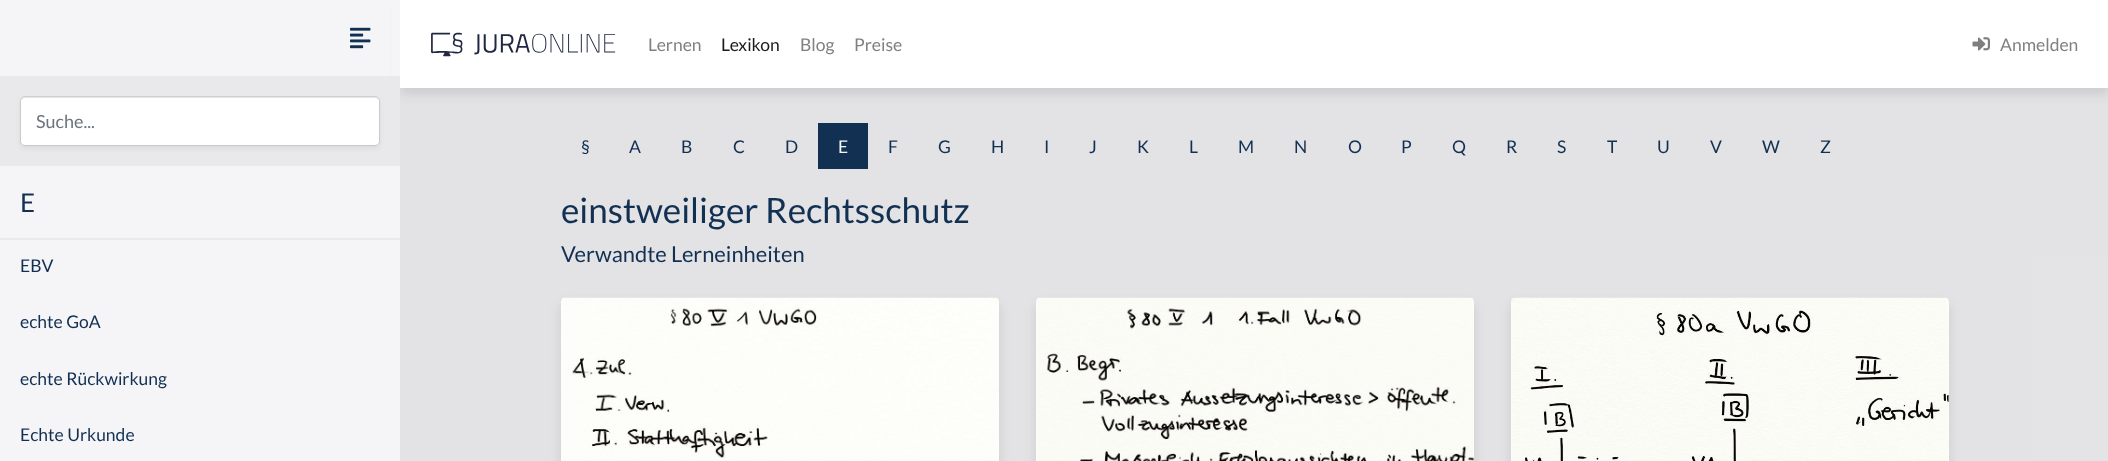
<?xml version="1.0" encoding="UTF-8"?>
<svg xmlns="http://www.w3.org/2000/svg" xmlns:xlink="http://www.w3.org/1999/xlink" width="2108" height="461">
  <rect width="100%" height="100%" fill="#f5f5f8" />
  <rect x="400" y="6" width="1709" height="88" fill="#000000" fill-opacity="0.1" filter="blur(6px)" />
  <rect x="392" y="1" width="8" height="98" fill="#f5f5f8" />
  <image x="350" y="27" width="21" height="22" xlink:href="image1.png" />
  <rect y="76" width="400" height="90" fill="#e9e9ec" />
  <rect x="20" y="99" width="360" height="50" rx="5" fill="#000000" fill-opacity="0.05" filter="blur(2.5px)" />
  <rect x="21" y="98" width="358" height="47" rx="4" fill="#ffffff" />
  <rect x="20.5" y="96.5" width="359" height="49" rx="4.5" fill="none" stroke="#000000" stroke-opacity="0.1" />
  <rect y="238" width="400" height="2" fill="#e9e9ec" />
  <rect x="400" width="1708" height="88" fill="#ffffff" />
  <image x="431" y="32" width="185" height="25" xlink:href="image2.png" />
  <image x="1972" y="37" width="18" height="14" xlink:href="image3.png" />
  <rect x="400" y="88" width="1708" height="373" fill="#000000" fill-opacity="0.07" />
  <rect x="818" y="123" width="50" height="46" fill="#123052" />
  <rect x="561" y="304" width="438" height="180" rx="5" fill="#000000" fill-opacity="0.1" filter="blur(6px)" />
  <path d="M 566 298 h 428 c 3 0 5 2 5 5 v 158 h -438 v -158 c 0 -3 2 -5 5 -5 z" fill="#ffffff" />
  <image x="561" y="297" width="438" height="164" xlink:href="image4.png" />
  <rect x="1036" y="304" width="438" height="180" rx="5" fill="#000000" fill-opacity="0.1" filter="blur(6px)" />
  <path d="M 1041 298 h 428 c 3 0 5 2 5 5 v 158 h -438 v -158 c 0 -3 2 -5 5 -5 z" fill="#ffffff" />
  <image x="1036" y="297" width="438" height="164" xlink:href="image5.png" />
  <rect x="1511" y="304" width="438" height="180" rx="5" fill="#000000" fill-opacity="0.1" filter="blur(6px)" />
  <path d="M 1516 298 h 428 c 3 0 5 2 5 5 v 158 h -438 v -158 c 0 -3 2 -5 5 -5 z" fill="#ffffff" />
  <image x="1511" y="297" width="438" height="164" xlink:href="image6.png" />
  <text x="36" y="128" style="font-family: Lato; font-size: 18px; fill: #6c757d">Suche...</text>
  <text x="20" y="212" style="font-family: Lato; font-size: 26px; fill: #123052">E</text>
  <text x="20" y="272" style="font-family: Lato; font-size: 17.5px; fill: #123052">EBV</text>
  <text x="20" y="328" style="font-family: Lato; font-size: 17.5px; fill: #123052">echte GoA</text>
  <text x="20" y="385" style="font-family: Lato; font-size: 17.5px; fill: #123052">echte Rückwirkung</text>
  <text x="20" y="441" style="font-family: Lato; font-size: 17.5px; fill: #123052">Echte Urkunde</text>
  <text x="648" y="51" style="font-family: Lato; font-size: 17.5px; fill: #808080">Lernen</text>
  <text x="721" y="51" style="font-family: Lato; font-size: 17.5px; fill: #1a1a1a">Lexikon</text>
  <text x="800" y="51" style="font-family: Lato; font-size: 17.5px; fill: #808080">Blog</text>
  <text x="854" y="51" style="font-family: Lato; font-size: 17.5px; fill: #808080">Preise</text>
  <text x="2000" y="51" style="font-family: Lato; font-size: 17.5px; fill: #808080">Anmelden</text>
  <text x="581" y="153" style="font-family: Lato; font-size: 17.5px; fill: #123052">§</text>
  <text x="629" y="153" style="font-family: Lato; font-size: 17.5px; fill: #123052">A</text>
  <text x="681" y="153" style="font-family: Lato; font-size: 17.5px; fill: #123052">B</text>
  <text x="733" y="153" style="font-family: Lato; font-size: 17.5px; fill: #123052">C</text>
  <text x="785" y="153" style="font-family: Lato; font-size: 17.5px; fill: #123052">D</text>
  <text x="838" y="153" style="font-family: Lato; font-size: 17.5px; fill: #f2f4f6">E</text>
  <text x="888" y="153" style="font-family: Lato; font-size: 17.5px; fill: #123052">F</text>
  <text x="938" y="153" style="font-family: Lato; font-size: 17.5px; fill: #123052">G</text>
  <text x="991" y="153" style="font-family: Lato; font-size: 17.5px; fill: #123052">H</text>
  <text x="1044" y="153" style="font-family: Lato; font-size: 17.5px; fill: #123052">I</text>
  <text x="1089" y="153" style="font-family: Lato; font-size: 17.5px; fill: #123052">J</text>
  <text x="1137" y="153" style="font-family: Lato; font-size: 17.5px; fill: #123052">K</text>
  <text x="1189" y="153" style="font-family: Lato; font-size: 17.5px; fill: #123052">L</text>
  <text x="1238" y="153" style="font-family: Lato; font-size: 17.5px; fill: #123052">M</text>
  <text x="1294" y="153" style="font-family: Lato; font-size: 17.5px; fill: #123052">N</text>
  <text x="1348" y="153" style="font-family: Lato; font-size: 17.5px; fill: #123052">O</text>
  <text x="1401" y="153" style="font-family: Lato; font-size: 17.5px; fill: #123052">P</text>
  <text x="1452" y="153" style="font-family: Lato; font-size: 17.5px; fill: #123052">Q</text>
  <text x="1506" y="153" style="font-family: Lato; font-size: 17.5px; fill: #123052">R</text>
  <text x="1557" y="153" style="font-family: Lato; font-size: 17.5px; fill: #123052">S</text>
  <text x="1607" y="153" style="font-family: Lato; font-size: 17.5px; fill: #123052">T</text>
  <text x="1657" y="153" style="font-family: Lato; font-size: 17.5px; fill: #123052">U</text>
  <text x="1710" y="153" style="font-family: Lato; font-size: 17.5px; fill: #123052">V</text>
  <text x="1762" y="153" style="font-family: Lato; font-size: 17.5px; fill: #123052">W</text>
  <text x="1820" y="153" style="font-family: Lato; font-size: 17.5px; fill: #123052">Z</text>
  <text x="561" y="223" style="font-family: Lato; font-size: 35px; fill: #123052">einstweiliger Rechtsschutz</text>
  <text x="561" y="262" style="font-family: Lato; font-size: 21.9px; fill: #123052">Verwandte Lerneinheiten</text>
</svg>
